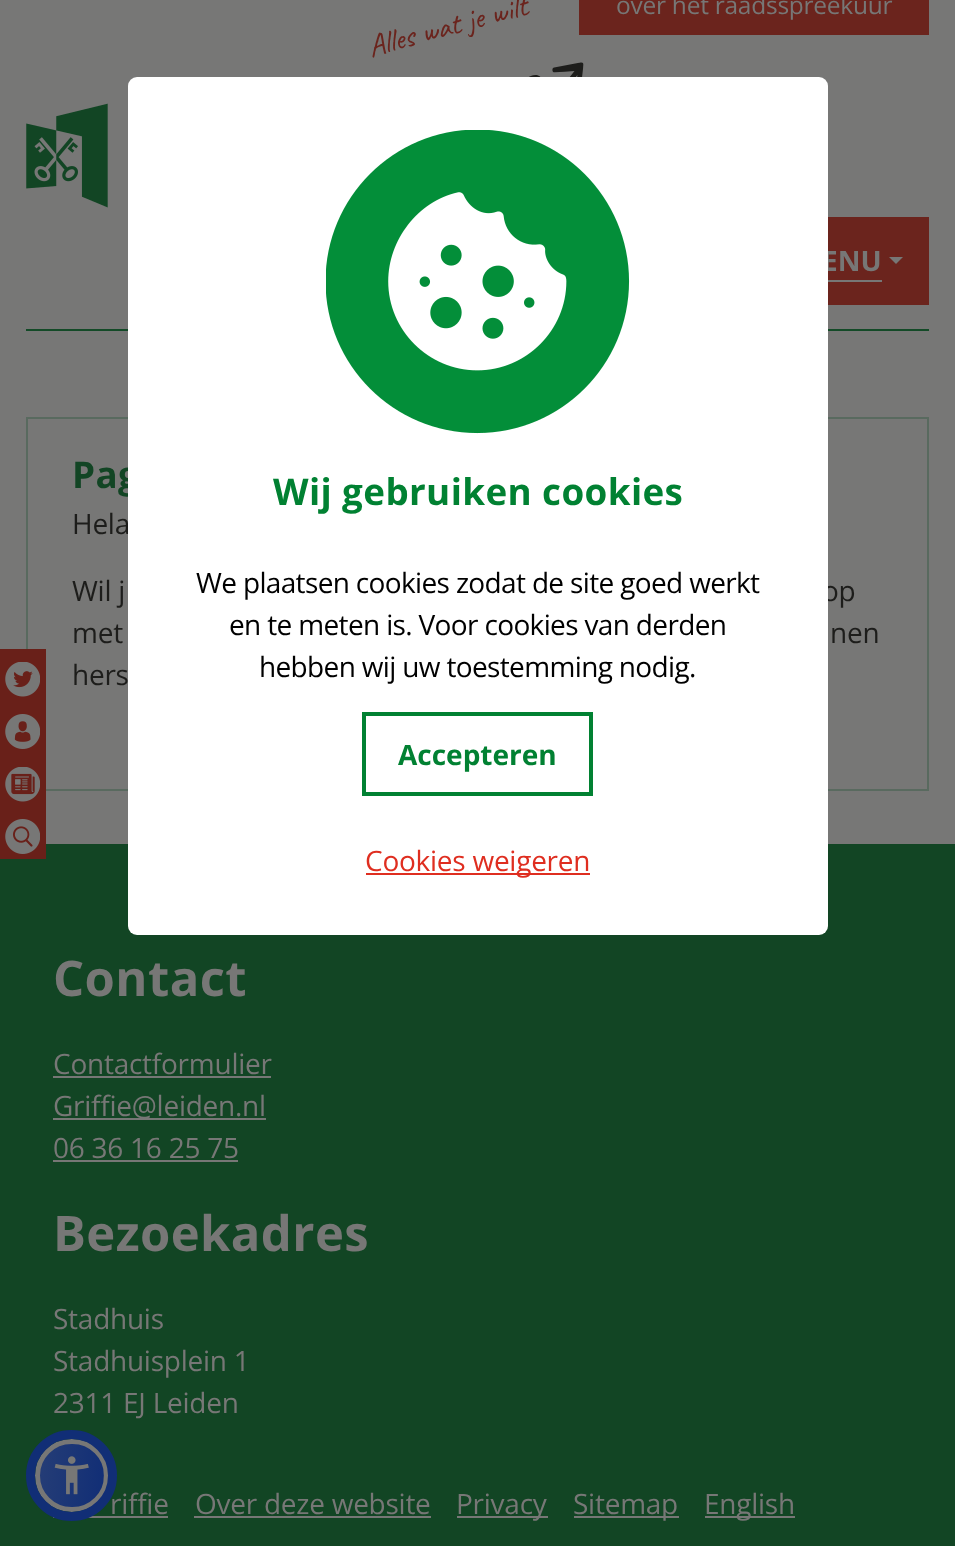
<?xml version="1.0" encoding="UTF-8"?>
<svg xmlns="http://www.w3.org/2000/svg" xmlns:xlink="http://www.w3.org/1999/xlink" width="955" height="1546">
  <defs>
    <clipPath id="clip1"><rect x="35" y="1439" width="74" height="73" rx="36.5" /></clipPath>
    <linearGradient id="g1" gradientUnits="userSpaceOnUse" x1="37" y1="1472" x2="106" y2="1479"><stop offset="0" stop-color="#253d76" /><stop offset="1" stop-color="#112e76" /></linearGradient>
    <linearGradient id="g2" gradientUnits="userSpaceOnUse" x1="100" y1="1472" x2="169" y2="1479"><stop offset="0" stop-color="#253d76" /><stop offset="1" stop-color="#112e76" /></linearGradient>
  </defs>
  <rect width="100%" height="100%" fill="#777776" />
  <image x="529" y="62" width="55" height="15" xlink:href="image1.png" />
  <rect x="579" width="350" height="35" fill="#6b241d" />
  <image x="26" y="103" width="82" height="105" xlink:href="image2.png" />
  <rect x="828" y="217" width="101" height="88" fill="#6b241d" />
  <rect x="828" y="280" width="54" height="2" fill="#777776" />
  <path d="M 889 257 h 14 l -7 7 z" fill="#777776" />
  <rect x="26" y="329" width="903" height="2" fill="#134a27" />
  <rect x="27" y="418" width="901" height="372" fill="none" stroke="#596a5f" stroke-width="2" />
  <rect y="844" width="955" height="702" fill="#124524" />
  <rect y="649" width="46" height="210" fill="#692019" />
  <image x="5" y="662" width="35" height="35" xlink:href="image3.png" />
  <image x="5" y="714" width="35" height="35" xlink:href="image4.png" />
  <image x="5" y="767" width="35" height="35" xlink:href="image5.png" />
  <image x="5" y="819" width="35" height="35" xlink:href="image6.png" />
  <rect x="53" y="1076" width="218" height="2" fill="#777776" />
  <rect x="53" y="1118" width="213" height="2" fill="#777776" />
  <rect x="53" y="1160" width="185" height="2" fill="#777776" />
  <rect x="53" y="1516" width="115" height="2" fill="#777776" />
  <rect x="194" y="1516" width="237" height="2" fill="#777776" />
  <rect x="457" y="1516" width="91" height="2" fill="#777776" />
  <rect x="574" y="1516" width="105" height="2" fill="#777776" />
  <rect x="705" y="1516" width="90" height="2" fill="#777776" />
  <g clip-path="url(#clip1)">
    <rect x="40" y="1444" width="63" height="63" fill="url(#g1)" />
    <rect x="103" y="1463" width="4" height="31" fill="url(#g2)" />
  </g>
  <rect x="37.5" y="1441.5" width="69" height="68" rx="34" fill="none" stroke="#777776" stroke-width="5" />
  <text x="371" y="57" transform="rotate(-15 371 57)" word-spacing="0.5" style="font-family: Caveat; font-size: 31.5px; letter-spacing: -0.25px; fill: #6b241d">Alles wat je wilt</text>
  <text x="616" y="14" style="font-family: Open Sans; font-size: 24.5px; letter-spacing: -0.25px; fill: #777776">over het raadsspreekuur</text>
  <text x="822" y="271" style="font-family: Open Sans; font-size: 28px; font-weight: bold; fill: #777776">ENU</text>
  <text x="72" y="488" style="font-family: Open Sans; font-size: 36.75px; font-weight: bold; letter-spacing: 0.4px; fill: #124524">Pag</text>
  <text x="72" y="534" style="font-family: Open Sans; font-size: 28px; letter-spacing: -0.25px; fill: #1d1d1b">Hela</text>
  <text x="72" y="601" style="font-family: Open Sans; font-size: 28px; letter-spacing: -0.25px; fill: #1d1d1b">Wil j</text>
  <text x="822" y="601" style="font-family: Open Sans; font-size: 28px; letter-spacing: -0.25px; fill: #1d1d1b">op</text>
  <text x="72" y="643" style="font-family: Open Sans; font-size: 28px; letter-spacing: -0.25px; fill: #1d1d1b">met</text>
  <text x="830" y="643" style="font-family: Open Sans; font-size: 28px; letter-spacing: -0.25px; fill: #1d1d1b">nen</text>
  <text x="72" y="685" style="font-family: Open Sans; font-size: 28px; letter-spacing: -0.25px; fill: #1d1d1b">hers</text>
  <text x="53" y="996" style="font-family: Open Sans; font-size: 49px; font-weight: bold; letter-spacing: 0.4px; fill: #777776">Contact</text>
  <text x="53" y="1074" style="font-family: Open Sans; font-size: 28px; letter-spacing: -0.25px; fill: #777776">Contactformulier</text>
  <text x="53" y="1116" style="font-family: Open Sans; font-size: 28px; letter-spacing: -0.25px; fill: #777776">Griffie@leiden.nl</text>
  <text x="53" y="1158" style="font-family: Open Sans; font-size: 28px; letter-spacing: -0.25px; fill: #777776">06 36 16 25 75</text>
  <text x="53" y="1251" style="font-family: Open Sans; font-size: 49px; font-weight: bold; letter-spacing: 0.4px; fill: #777776">Bezoekadres</text>
  <text x="53" y="1329" style="font-family: Open Sans; font-size: 28px; letter-spacing: -0.25px; fill: #777776">Stadhuis</text>
  <text x="53" y="1371" style="font-family: Open Sans; font-size: 28px; letter-spacing: -0.25px; fill: #777776">Stadhuisplein 1</text>
  <text x="53" y="1413" style="font-family: Open Sans; font-size: 28px; letter-spacing: -0.25px; fill: #777776">2311 EJ Leiden</text>
  <text x="110" y="1514" style="font-family: Open Sans; font-size: 28px; letter-spacing: -0.25px; fill: #777776">riffie</text>
  <text x="195" y="1514" style="font-family: Open Sans; font-size: 28px; letter-spacing: -0.25px; fill: #777776">Over deze website</text>
  <text x="456" y="1514" style="font-family: Open Sans; font-size: 28px; letter-spacing: -0.25px; fill: #777776">Privacy</text>
  <text x="573" y="1514" style="font-family: Open Sans; font-size: 28px; letter-spacing: -0.25px; fill: #777776">Sitemap</text>
  <text x="704" y="1514" style="font-family: Open Sans; font-size: 28px; letter-spacing: -0.25px; fill: #777776">English</text>
  <rect x="128" y="77" width="700" height="858" rx="9" fill="#ffffff" />
  <image x="326" y="130" width="304" height="304" xlink:href="image7.png" />
  <text x="273" y="505" style="font-family: Open Sans; font-size: 36.75px; font-weight: bold; letter-spacing: 0.4px; fill: #018132">Wij gebruiken cookies</text>
  <text x="196" y="593" style="font-family: Open Sans; font-size: 28px; letter-spacing: -0.65px; fill: #000000">We plaatsen cookies zodat de site goed werkt</text>
  <text x="229" y="635" style="font-family: Open Sans; font-size: 28px; letter-spacing: -0.65px; fill: #000000">en te meten is. Voor cookies van derden</text>
  <text x="259" y="677" style="font-family: Open Sans; font-size: 28px; letter-spacing: -0.65px; fill: #000000">hebben wij uw toestemming nodig.</text>
  <rect x="364" y="714" width="227" height="80" fill="none" stroke="#018132" stroke-width="4" />
  <text x="398" y="765" style="font-family: Open Sans; font-size: 28px; font-weight: bold; fill: #018132">Accepteren</text>
  <rect x="366" y="873" width="224" height="2" fill="#df2e20" />
  <text x="365" y="871" style="font-family: Open Sans; font-size: 28px; letter-spacing: -0.25px; fill: #df2e20">Cookies weigeren</text>
  <circle cx="71.5" cy="1475.5" r="41" fill="none" stroke="#112e76" stroke-width="9" />
  <image x="54" y="1456" width="35" height="39" xlink:href="image8.png" />
</svg>
